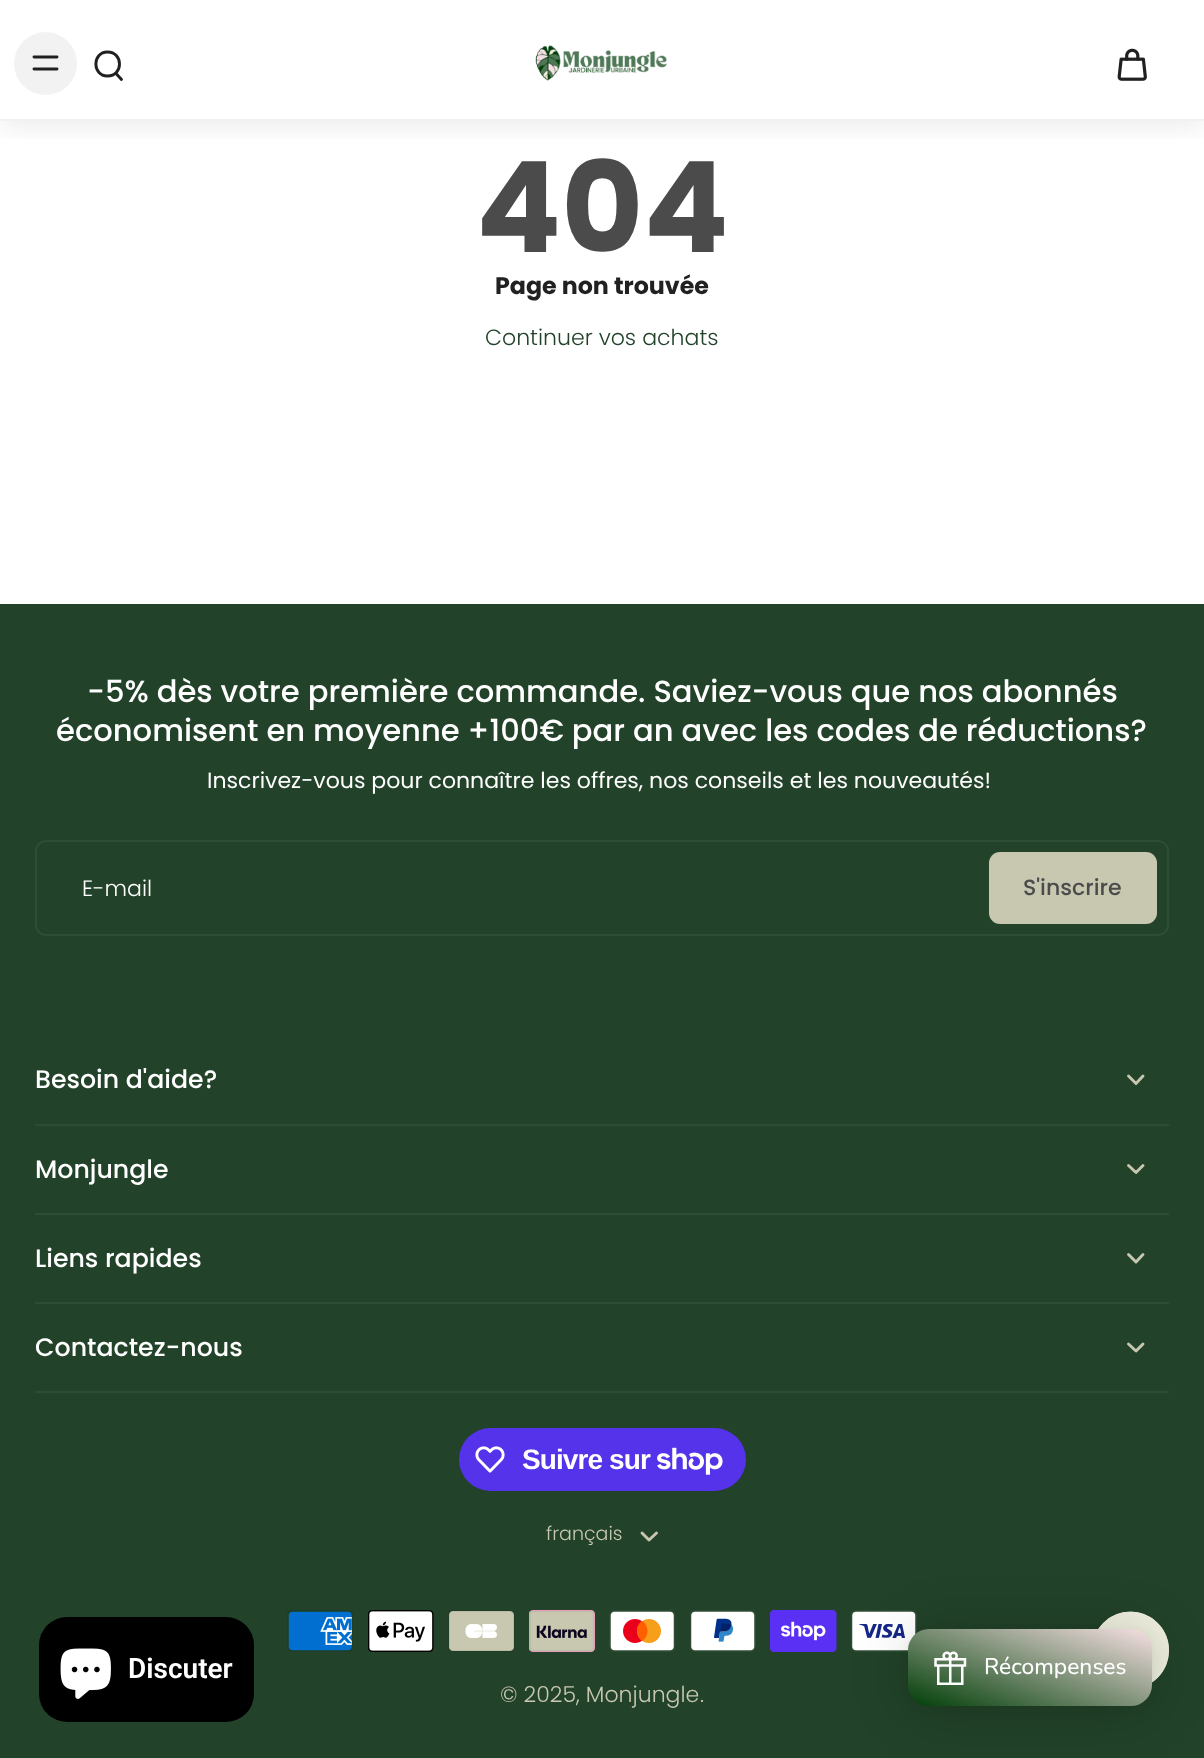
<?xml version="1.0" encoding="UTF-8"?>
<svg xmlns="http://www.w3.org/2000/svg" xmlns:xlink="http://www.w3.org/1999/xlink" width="1204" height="1758">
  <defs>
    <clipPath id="clip1"><rect x="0" y="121" width="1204" height="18" /></clipPath>
    <linearGradient id="g1" gradientUnits="userSpaceOnUse" x1="1056" y1="1595" x2="1003" y2="1741"><stop offset="0" stop-color="#f5dfe2" /><stop offset="1" stop-color="#003e07" /></linearGradient>
  </defs>
  <rect width="100%" height="100%" fill="#ffffff" />
  <g clip-path="url(#clip1)">
    <rect y="9" width="1204" height="119" fill="#4b4b4b" fill-opacity="0.1" filter="blur(13px)" />
  </g>
  <circle cx="45.5" cy="63.5" r="31.5" fill="#f2f2f2" />
  <path d="M 34 57 h 23 m -23 12 h 23" fill="none" stroke="#212020" stroke-width="2.9" stroke-linecap="round" />
  <image x="535" y="45" width="132" height="36" xlink:href="image1.png" />
  <path d="M 107.5 76 c 16 0 16 -24 0 -24 c -15.5 0 -15.5 24 0 24 z" fill="none" stroke="#212020" stroke-width="2.9" />
  <path d="M 116 73.5 l 5.5 6" fill="none" stroke="#212020" stroke-width="2.9" stroke-linecap="round" />
  <image x="1117" y="48" width="30" height="33" xlink:href="image2.png" />
  <rect y="119" width="1204" height="2" fill="#f2f2f2" />
  <rect y="604" width="1204" height="1154" fill="#224229" />
  <rect x="36" y="841" width="1132" height="94" rx="10" fill="none" stroke="#2f4d36" stroke-width="2" />
  <rect x="989" y="852" width="168" height="72" rx="11" fill="#c8c8b1" />
  <rect x="35" y="1124" width="1134" height="2" fill="#2f4d36" />
  <path d="M 1128.5 1076 l 7.5 7.5 l 7 -7.5" fill="none" stroke="#c8c8b1" stroke-width="2.9" stroke-linecap="round" stroke-linejoin="round" />
  <rect x="35" y="1213" width="1134" height="2" fill="#2f4d36" />
  <path d="M 1128.5 1165.5 l 7.5 7 l 7 -7" fill="none" stroke="#c8c8b1" stroke-width="2.9" stroke-linecap="round" stroke-linejoin="round" />
  <rect x="35" y="1302" width="1134" height="2" fill="#2f4d36" />
  <path d="M 1128.5 1254.5 l 7.5 7.5 l 7 -7.5" fill="none" stroke="#c8c8b1" stroke-width="2.9" stroke-linecap="round" stroke-linejoin="round" />
  <rect x="35" y="1391" width="1134" height="2" fill="#2f4d36" />
  <path d="M 1128.5 1344 l 7.5 7 l 7 -7" fill="none" stroke="#c8c8b1" stroke-width="2.9" stroke-linecap="round" stroke-linejoin="round" />
  <rect x="459" y="1428" width="287" height="63" rx="31.5" fill="#5433eb" />
  <image x="475" y="1446" width="30" height="27" xlink:href="image3.png" />
  <image x="657" y="1447" width="66" height="28" xlink:href="image4.png" />
  <path d="M 642 1533 l 7 7 l 7.5 -7" fill="none" stroke="#c8c8b1" stroke-width="2.9" stroke-linecap="round" stroke-linejoin="round" />
  <image x="287" y="1610" width="66" height="42" xlink:href="image5.png" />
  <image x="368" y="1610" width="66" height="42" xlink:href="image6.png" />
  <image x="448" y="1610" width="67" height="42" xlink:href="image7.png" />
  <image x="529" y="1610" width="66" height="42" xlink:href="image8.png" />
  <image x="609" y="1610" width="67" height="42" xlink:href="image9.png" />
  <image x="690" y="1610" width="66" height="42" xlink:href="image10.png" />
  <image x="770" y="1610" width="67" height="42" xlink:href="image11.png" />
  <image x="851" y="1610" width="66" height="42" xlink:href="image12.png" />
  <path d="M 1092 1650 c 0 -21 17 -38 38 -38 c 22 0 39 17 39 38 c 0 22 -17 39 -39 39 c -21 0 -38 -17 -38 -39 z" fill="#ededdd" />
  <path d="M 1093 1650 c 0 -20.5 16.5 -37.5 37.5 -37.5 c 21 0 37.5 17 37.5 37.5 c 0 21 -16.5 38 -37.5 38 c -21 0 -37.5 -17 -37.5 -38 z" fill="none" stroke="#ededdd" stroke-width="1.8" />
  <rect x="39" y="1617" width="215" height="105" rx="28" fill="#000000" />
  <image x="60" y="1648" width="51" height="51" xlink:href="image13.png" />
  <rect x="908" y="1633" width="244" height="77" rx="21" fill="#000000" fill-opacity="0.16" filter="blur(28px)" />
  <rect x="908" y="1631" width="244" height="77" rx="21" fill="#000000" fill-opacity="0.06" filter="blur(5px)" />
  <rect x="908" y="1629" width="244" height="77" rx="21" fill="url(#g1)" />
  <image x="934" y="1651" width="33" height="34" xlink:href="image14.png" />
  <text x="476" y="252" style="font-family: Poppins; font-size: 126px; font-weight: bold; fill: #4b4b4b">404</text>
  <text x="495" y="294" style="font-family: Poppins; font-size: 23.75px; font-weight: bold; fill: #212121">Page non trouvée</text>
  <text x="485" y="345" style="font-family: Poppins; font-size: 22.05px; font-weight: 300; fill: #224229">Continuer vos achats</text>
  <text x="87" y="702" style="font-family: Poppins; font-size: 30.6px; font-weight: 500; fill: #ffffff">-5% dès votre première commande. Saviez-vous que nos abonnés</text>
  <text x="56" y="741" style="font-family: Poppins; font-size: 30.6px; font-weight: 500; fill: #ffffff">économisent en moyenne +100€ par an avec les codes de réductions?</text>
  <text x="207" y="788" style="font-family: Poppins; font-size: 22.05px; fill: #ffffff">Inscrivez-vous pour connaître les offres, nos conseils et les nouveautés!</text>
  <text x="82" y="896" style="font-family: Poppins; font-size: 22.05px; font-weight: 300; fill: #ffffff">E-mail</text>
  <text x="1023" y="895" style="font-family: Poppins; font-size: 22.05px; font-weight: 500; fill: #4b4b4b">S'inscrire</text>
  <text x="35" y="1088" style="font-family: Poppins; font-size: 25.25px; font-weight: 500; fill: #ffffff">Besoin d'aide?</text>
  <text x="35" y="1178" style="font-family: Poppins; font-size: 25.25px; font-weight: 500; fill: #ffffff">Monjungle</text>
  <text x="35" y="1267" style="font-family: Poppins; font-size: 25.25px; font-weight: 500; fill: #ffffff">Liens rapides</text>
  <text x="35" y="1356" style="font-family: Poppins; font-size: 25.25px; font-weight: 500; fill: #ffffff">Contactez-nous</text>
  <text x="522" y="1469" style="font-family: Liberation Sans; font-size: 28px; font-weight: bold; letter-spacing: -0.9px; fill: #ffffff">Suivre sur</text>
  <text x="546" y="1540" style="font-family: Poppins; font-size: 19px; font-weight: 300; fill: #c8c8b1">français</text>
  <text x="500" y="1702" style="font-family: Poppins; font-size: 22.05px; font-weight: 300; fill: #c8c8b1">© 2025, Monjungle</text>
  <text x="700" y="1702" style="font-family: Poppins; font-size: 22.05px; font-weight: 300; fill: #c8c8b1">.</text>
  <text x="128" y="1678" style="font-family: Roboto; font-size: 28px; font-weight: 600; fill: #ffffff">Discuter</text>
  <text x="984" y="1674" style="font-family: Nunito; font-size: 22.75px; font-weight: 500; fill: #ffffff">Récompenses</text>
</svg>
